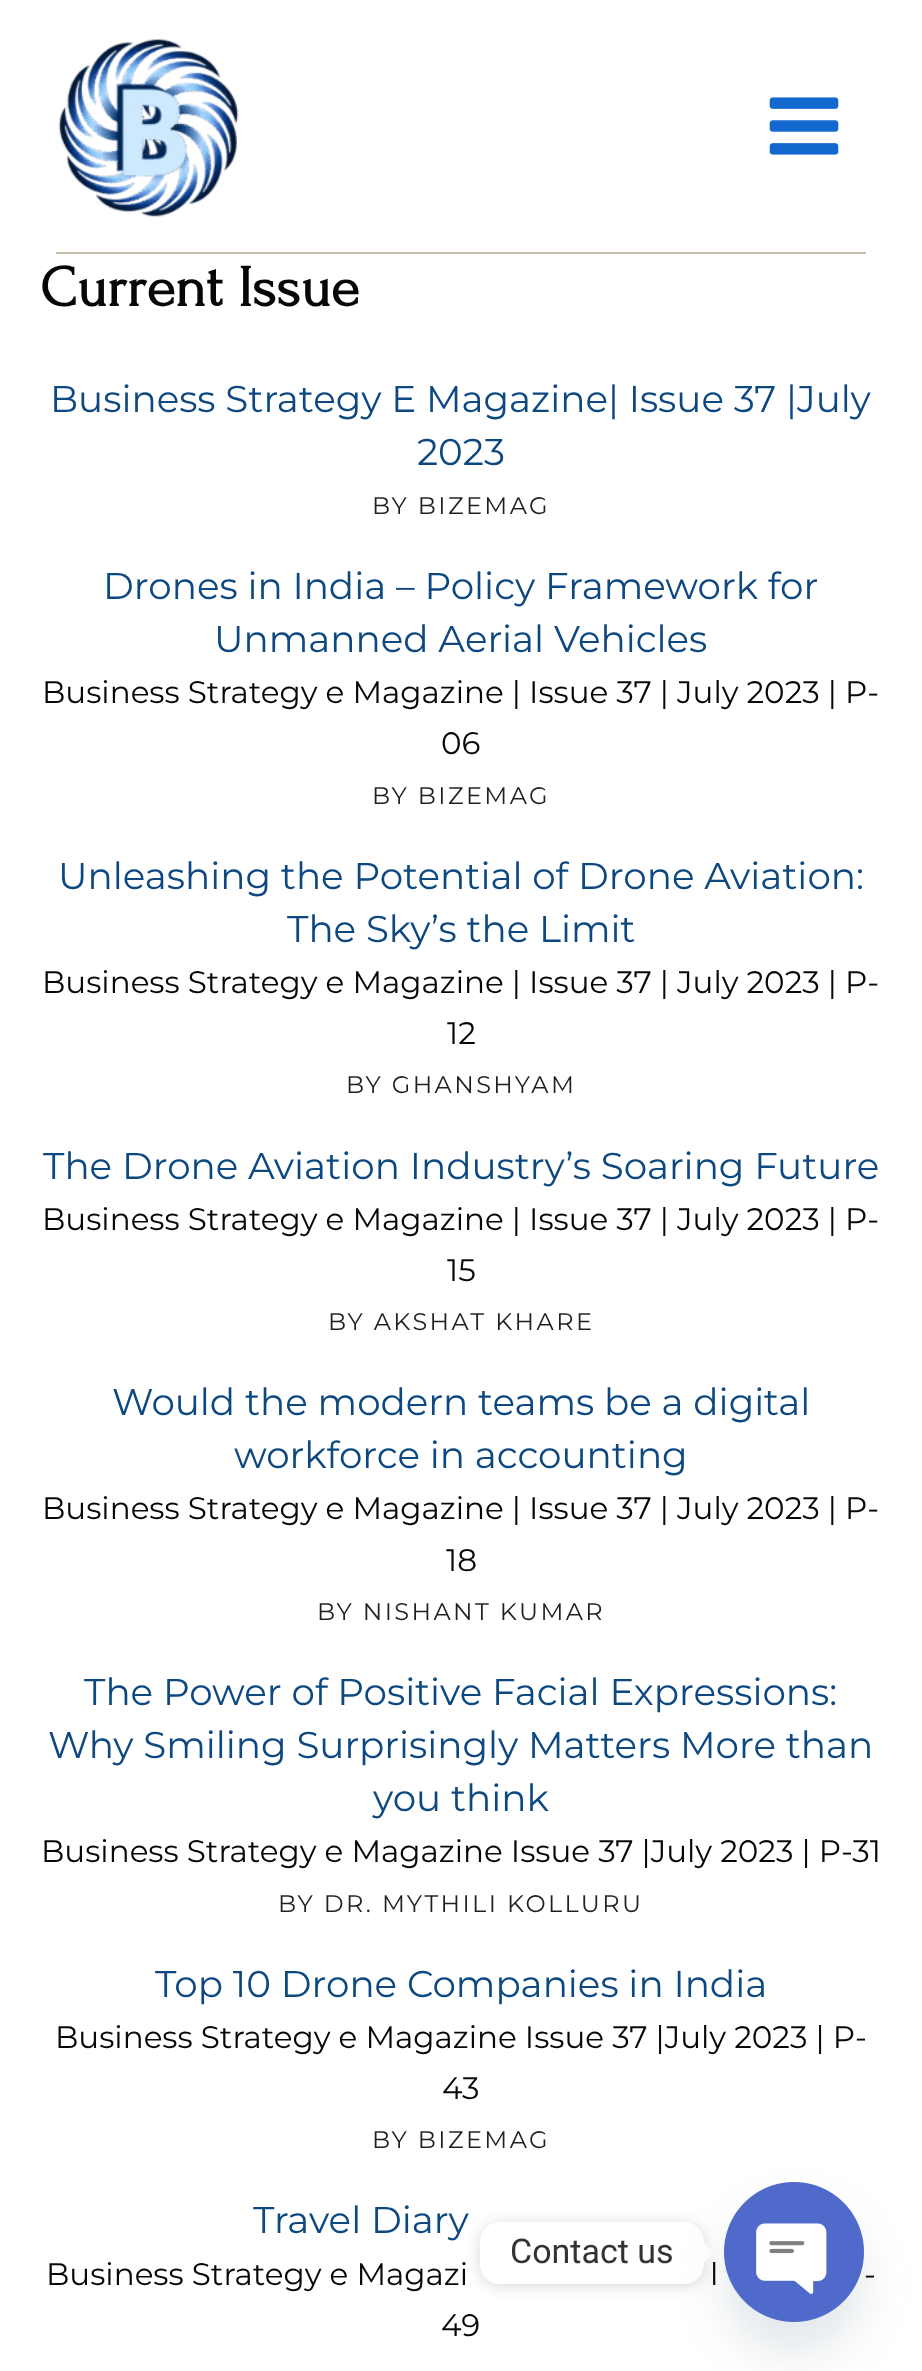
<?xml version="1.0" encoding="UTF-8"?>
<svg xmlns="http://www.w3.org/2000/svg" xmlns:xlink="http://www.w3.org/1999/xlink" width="922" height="2371">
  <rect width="100%" height="100%" fill="#ffffff" />
  <rect x="56" y="252" width="810" height="2" fill="#c8bdab" />
  <image x="58" y="38" width="181" height="179" xlink:href="image1.png" />
  <image x="769" y="97" width="70" height="58" xlink:href="image2.png" />
  <rect x="480" y="2224" width="224" height="62" rx="20" fill="#000000" fill-opacity="0.15" filter="blur(7.5px)" />
  <rect x="480" y="2222" width="224" height="62" rx="20" fill="#ffffff" />
  <text x="40" y="306" style="font-family: Forum; font-size: 58.5px; font-weight: bold; fill: #070707">Current Issue</text>
  <text x="50" y="412" style="font-family: Montserrat; font-size: 37.3px; font-weight: 100; fill: #0d4880">Business Strategy E Magazine| Issue 37 |July</text>
  <text x="417" y="465" style="font-family: Montserrat; font-size: 37.3px; font-weight: 100; fill: #0d4880">2023</text>
  <text x="372" y="514" style="font-family: Montserrat; font-size: 24px; font-weight: 100; letter-spacing: 2.4px; fill: #231f20">BY BIZEMAG</text>
  <text x="103" y="599" style="font-family: Montserrat; font-size: 37.3px; font-weight: 100; fill: #0d4880">Drones in India – Policy Framework for</text>
  <text x="214" y="652" style="font-family: Montserrat; font-size: 37.3px; font-weight: 100; fill: #0d4880">Unmanned Aerial Vehicles</text>
  <text x="42" y="703" style="font-family: Montserrat; font-size: 31px; font-weight: 100; fill: #070707">Business Strategy e Magazine | Issue 37 | July 2023 | P-</text>
  <text x="441" y="754" style="font-family: Montserrat; font-size: 31px; font-weight: 100; fill: #070707">06</text>
  <text x="372" y="804" style="font-family: Montserrat; font-size: 24px; font-weight: 100; letter-spacing: 2.4px; fill: #231f20">BY BIZEMAG</text>
  <text x="58" y="889" style="font-family: Montserrat; font-size: 37.3px; font-weight: 100; fill: #0d4880">Unleashing the Potential of Drone Aviation:</text>
  <text x="287" y="942" style="font-family: Montserrat; font-size: 37.3px; font-weight: 100; fill: #0d4880">The Sky’s the Limit</text>
  <text x="42" y="993" style="font-family: Montserrat; font-size: 31px; font-weight: 100; fill: #070707">Business Strategy e Magazine | Issue 37 | July 2023 | P-</text>
  <text x="447" y="1044" style="font-family: Montserrat; font-size: 31px; font-weight: 100; fill: #070707">12</text>
  <text x="346" y="1093" style="font-family: Montserrat; font-size: 24px; font-weight: 100; letter-spacing: 2.4px; fill: #231f20">BY GHANSHYAM</text>
  <text x="43" y="1179" style="font-family: Montserrat; font-size: 37.3px; font-weight: 100; fill: #0d4880">The Drone Aviation Industry’s Soaring Future</text>
  <text x="42" y="1230" style="font-family: Montserrat; font-size: 31px; font-weight: 100; fill: #070707">Business Strategy e Magazine | Issue 37 | July 2023 | P-</text>
  <text x="447" y="1281" style="font-family: Montserrat; font-size: 31px; font-weight: 100; fill: #070707">15</text>
  <text x="328" y="1330" style="font-family: Montserrat; font-size: 24px; font-weight: 100; letter-spacing: 2.4px; fill: #231f20">BY AKSHAT KHARE</text>
  <text x="112" y="1415" style="font-family: Montserrat; font-size: 37.3px; font-weight: 100; fill: #0d4880">Would the modern teams be a digital</text>
  <text x="234" y="1468" style="font-family: Montserrat; font-size: 37.3px; font-weight: 100; fill: #0d4880">workforce in accounting</text>
  <text x="42" y="1519" style="font-family: Montserrat; font-size: 31px; font-weight: 100; fill: #070707">Business Strategy e Magazine | Issue 37 | July 2023 | P-</text>
  <text x="446" y="1571" style="font-family: Montserrat; font-size: 31px; font-weight: 100; fill: #070707">18</text>
  <text x="317" y="1620" style="font-family: Montserrat; font-size: 24px; font-weight: 100; letter-spacing: 2.4px; fill: #231f20">BY NISHANT KUMAR</text>
  <text x="84" y="1705" style="font-family: Montserrat; font-size: 37.3px; font-weight: 100; fill: #0d4880">The Power of Positive Facial Expressions:</text>
  <text x="48" y="1758" style="font-family: Montserrat; font-size: 37.3px; font-weight: 100; fill: #0d4880">Why Smiling Surprisingly Matters More than</text>
  <text x="373" y="1811" style="font-family: Montserrat; font-size: 37.3px; font-weight: 100; fill: #0d4880">you think</text>
  <text x="41" y="1862" style="font-family: Montserrat; font-size: 31px; font-weight: 100; fill: #070707">Business Strategy e Magazine Issue 37 |July 2023 | P-31</text>
  <text x="278" y="1912" style="font-family: Montserrat; font-size: 24px; font-weight: 100; letter-spacing: 2.4px; fill: #231f20">BY DR. MYTHILI KOLLURU</text>
  <text x="155" y="1997" style="font-family: Montserrat; font-size: 37.3px; font-weight: 100; fill: #0d4880">Top 10 Drone Companies in India</text>
  <text x="55" y="2048" style="font-family: Montserrat; font-size: 31px; font-weight: 100; fill: #070707">Business Strategy e Magazine Issue 37 |July 2023 | P-</text>
  <text x="442" y="2099" style="font-family: Montserrat; font-size: 31px; font-weight: 100; fill: #070707">43</text>
  <text x="372" y="2148" style="font-family: Montserrat; font-size: 24px; font-weight: 100; letter-spacing: 2.4px; fill: #231f20">BY BIZEMAG</text>
  <text x="253" y="2233" style="font-family: Montserrat; font-size: 37.3px; font-weight: 100; fill: #0d4880">Travel Diary</text>
  <text x="46" y="2285" style="font-family: Montserrat; font-size: 31px; font-weight: 100; fill: #070707">Business Strategy e Magazi</text>
  <text x="710" y="2285" style="font-family: Montserrat; font-size: 31px; font-weight: 100; fill: #070707">l</text>
  <text x="864" y="2285" style="font-family: Montserrat; font-size: 31px; font-weight: 100; fill: #070707">-</text>
  <text x="441" y="2336" style="font-family: Montserrat; font-size: 31px; font-weight: 100; fill: #070707">49</text>
  <text x="510" y="2263" style="font-family: Roboto; font-size: 34px; fill: #333333">Contact us</text>
  <path d="M 704 2263 v -20 l 10 10 z" fill="#ffffff" />
  <rect x="724" y="2214" width="140" height="140" rx="70" fill="#49687e" fill-opacity="0.16" filter="blur(24px)" />
  <image x="724" y="2182" width="140" height="140" xlink:href="image3.png" />
</svg>
